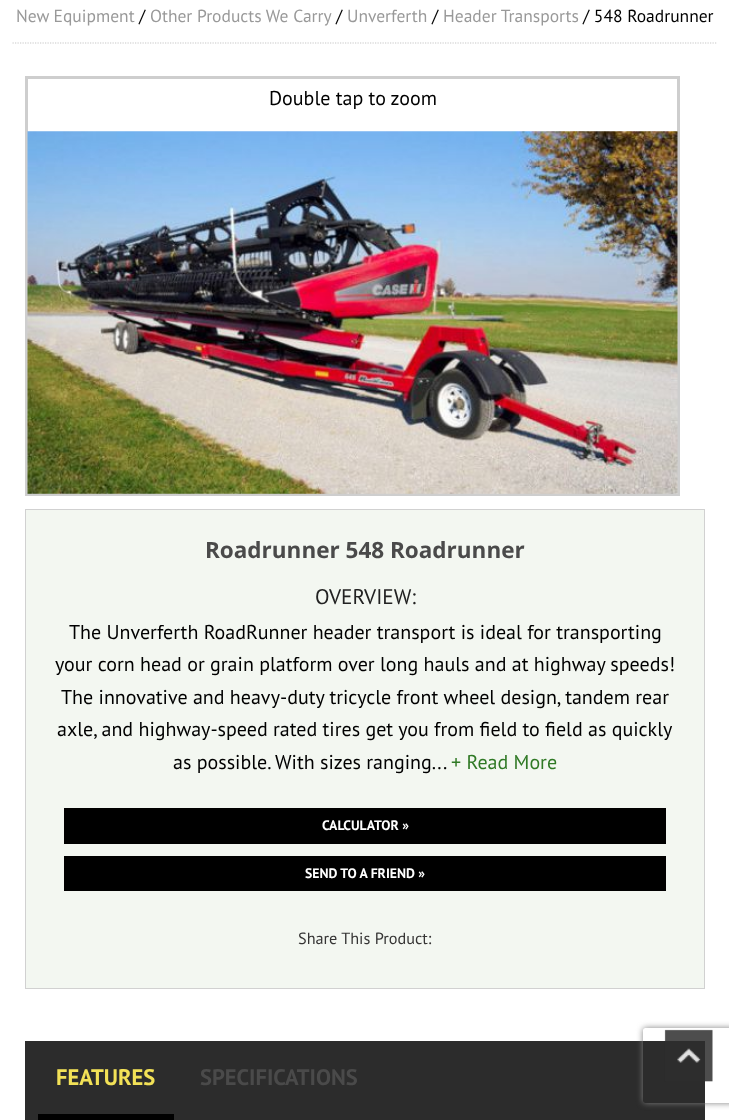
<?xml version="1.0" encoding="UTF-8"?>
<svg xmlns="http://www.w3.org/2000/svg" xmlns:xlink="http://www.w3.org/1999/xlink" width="729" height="1120">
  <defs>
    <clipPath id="clip1"><path d="M 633 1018 h 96 v 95 h -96 z m 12.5 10 h 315 c 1.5 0 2.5 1 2.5 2.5 v 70 c 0 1.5 -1 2.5 -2.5 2.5 h -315 c -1.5 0 -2.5 -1 -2.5 -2.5 v -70 c 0 -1.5 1 -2.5 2.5 -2.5 z" clip-rule="evenodd" /></clipPath>
  </defs>
  <rect width="100%" height="100%" fill="#ffffff" />
  <path d="M 12.5 43 h 705" fill="none" stroke="#c7c7c7" stroke-width="1.2" stroke-dasharray="1.25 1.25" />
  <rect x="26.5" y="77.5" width="652" height="417" fill="none" stroke="#cecece" stroke-width="3" />
  <image x="27" y="131" width="651" height="363" xlink:href="image1.png" />
  <rect x="25.5" y="509.5" width="679" height="479" fill="#f3f7f1" stroke="#d1d1d1" />
  <rect x="64" y="808" width="602" height="36" fill="#000000" />
  <rect x="64" y="856" width="602" height="35" fill="#000000" />
  <rect x="25" y="1041" width="680" height="79" fill="#2c2c2c" />
  <rect x="38" y="1114" width="136" height="6" fill="#000000" />
  <g clip-path="url(#clip1)">
    <rect x="643" y="1028" width="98" height="75" rx="2.5" fill="#808080" filter="blur(3px)" />
  </g>
  <image x="664" y="1029" width="49" height="53" xlink:href="image2.png" />
  <text x="16" y="22" style="font-family: PT Sans; font-size: 17.5px; fill: #999999">New Equipment</text>
  <text x="139" y="22" style="font-family: PT Sans; font-size: 17.5px; fill: #000000">/</text>
  <text x="150" y="22" style="font-family: PT Sans; font-size: 17.5px; fill: #999999">Other Products We Carry</text>
  <text x="336" y="22" style="font-family: PT Sans; font-size: 17.5px; fill: #000000">/</text>
  <text x="347" y="22" style="font-family: PT Sans; font-size: 17.5px; fill: #999999">Unverferth</text>
  <text x="432" y="22" style="font-family: PT Sans; font-size: 17.5px; fill: #000000">/</text>
  <text x="443" y="22" style="font-family: PT Sans; font-size: 17.5px; fill: #999999">Header Transports</text>
  <text x="583" y="22" style="font-family: PT Sans; font-size: 17.5px; fill: #000000">/ 548 Roadrunner</text>
  <text x="269" y="105" style="font-family: PT Sans; font-size: 20px; fill: #000000">Double tap to zoom</text>
  <text x="205" y="558" style="font-family: Open Sans; font-size: 22.5px; font-weight: bold; fill: #4a4a4a">Roadrunner 548 Roadrunner</text>
  <text x="315" y="604" style="font-family: PT Sans; font-size: 21.25px; fill: #222222">OVERVIEW:</text>
  <text x="69" y="639" style="font-family: PT Sans; font-size: 20px; fill: #000000">The Unverferth RoadRunner header transport is ideal for transporting</text>
  <text x="55" y="671" style="font-family: PT Sans; font-size: 20px; fill: #000000">your corn head or grain platform over long hauls and at highway speeds!</text>
  <text x="61" y="704" style="font-family: PT Sans; font-size: 20px; fill: #000000">The innovative and heavy-duty tricycle front wheel design, tandem rear</text>
  <text x="57" y="736" style="font-family: PT Sans; font-size: 20px; fill: #000000">axle, and highway-speed rated tires get you from field to field as quickly</text>
  <text x="173" y="769" style="font-family: PT Sans; font-size: 20px; fill: #000000">as possible.</text>
  <text x="275" y="769" style="font-family: PT Sans; font-size: 20px; fill: #000000">With sizes ranging...</text>
  <text x="451" y="769" style="font-family: PT Sans; font-size: 20px; fill: #2f7925">+ Read More</text>
  <text x="322" y="830" style="font-family: PT Sans; font-size: 13.75px; font-weight: bold; fill: #ffffff">CALCULATOR »</text>
  <text x="305" y="878" style="font-family: PT Sans; font-size: 13.75px; font-weight: bold; fill: #ffffff">SEND TO A FRIEND »</text>
  <text x="298" y="944" style="font-family: PT Sans; font-size: 16.25px; fill: #353434">Share This Product:</text>
  <text x="56" y="1085" style="font-family: PT Sans; font-size: 22.5px; font-weight: bold; fill: #f2e157">FEATURES</text>
  <text x="200" y="1085" style="font-family: PT Sans; font-size: 22.5px; font-weight: bold; fill: #4a4a4a">SPECIFICATIONS</text>
</svg>
